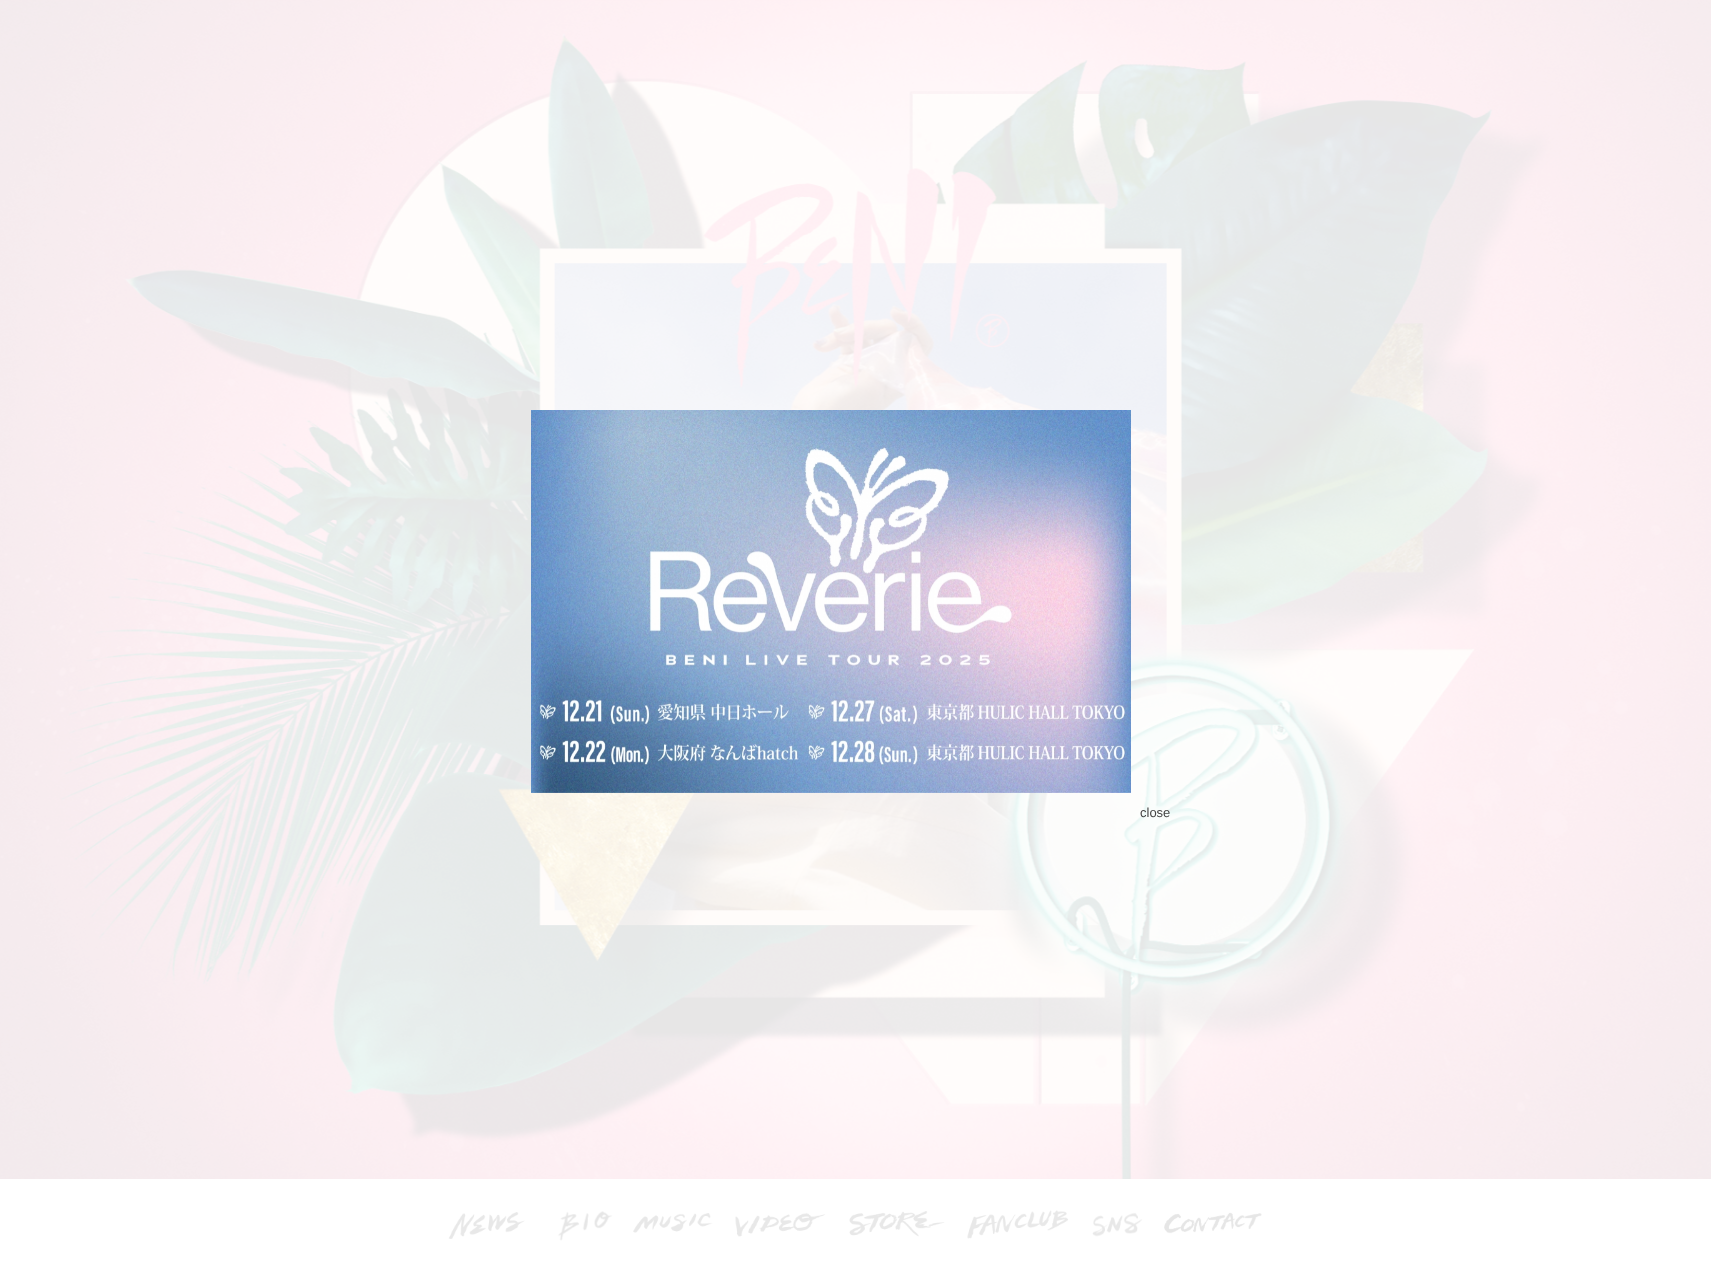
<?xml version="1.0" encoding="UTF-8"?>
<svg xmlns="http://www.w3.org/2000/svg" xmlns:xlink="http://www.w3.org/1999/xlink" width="1711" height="1279">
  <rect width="100%" height="100%" fill="#ffffff" />
  <image x="0" y="0" width="1711" height="1179" xlink:href="image1.png" />
  <image x="531" y="410" width="600" height="383" xlink:href="image2.png" />
  <image x="448" y="1212" width="77" height="27" xlink:href="image3.png" />
  <image x="557" y="1211" width="56" height="30" xlink:href="image4.png" />
  <image x="633" y="1213" width="80" height="20" xlink:href="image5.png" />
  <image x="735" y="1212" width="91" height="25" xlink:href="image6.png" />
  <image x="849" y="1211" width="96" height="26" xlink:href="image7.png" />
  <image x="967" y="1210" width="102" height="29" xlink:href="image8.png" />
  <image x="1092" y="1212" width="51" height="25" xlink:href="image9.png" />
  <image x="1164" y="1212" width="98" height="22" xlink:href="image10.png" />
  <text x="1140" y="817" style="font-family: Liberation Sans; font-size: 13px; fill: #444444">close</text>
</svg>
